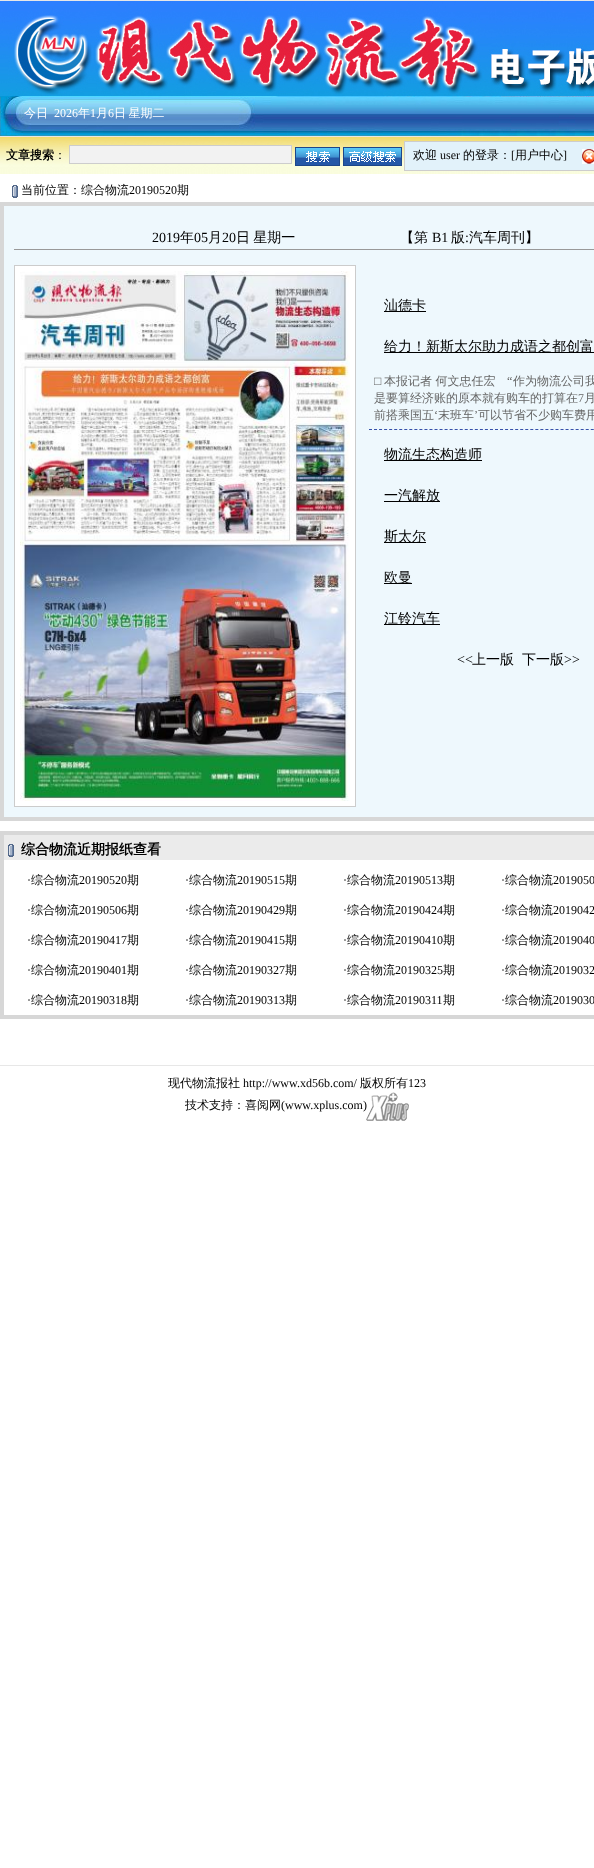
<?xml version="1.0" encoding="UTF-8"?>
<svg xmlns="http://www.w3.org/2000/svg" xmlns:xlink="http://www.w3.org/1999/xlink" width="594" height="1868">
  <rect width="100%" height="100%" fill="#ffffff" />
  <rect width="594" height="1" fill="#e7e7e7" />
  <image x="0" y="1" width="594" height="135" xlink:href="image1.png" />
  <rect y="136" width="594" height="1" fill="#e7e7e7" />
  <image x="0" y="137" width="594" height="37" xlink:href="image2.png" />
  <rect x="69.5" y="145.5" width="222" height="18" fill="#f2f2f2" stroke="#cdcdcd" />
  <image x="295" y="147" width="45" height="19" xlink:href="image3.png" />
  <image x="343" y="147" width="59" height="19" xlink:href="image4.png" />
  <rect x="404.5" y="141.5" width="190" height="29" fill="#e2f2fa" stroke="#cdcdcd" />
  <image x="582" y="149" width="12" height="15" xlink:href="image5.png" />
  <image x="12" y="185" width="6" height="13" xlink:href="image6.png" />
  <rect x="2" y="204" width="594" height="615" fill="#eef8fd" stroke="#d7d7d7" stroke-width="4" />
  <rect x="14" y="249" width="580" height="1" fill="#999999" />
  <rect x="14.5" y="265.5" width="341" height="541" fill="#ffffff" stroke="#cccccc" />
  <image x="20" y="271" width="330" height="530" xlink:href="image7.png" />
  <rect x="384" y="311" width="42" height="1" fill="#000000" />
  <rect x="384" y="352" width="210" height="1" fill="#000000" />
  <path d="M 369 429.5 h 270" fill="none" stroke="#3651aa" stroke-dasharray="3 2.04" />
  <rect x="384" y="460" width="98" height="1" fill="#000000" />
  <rect x="384" y="501" width="56" height="1" fill="#000000" />
  <rect x="384" y="542" width="42" height="1" fill="#000000" />
  <rect x="384" y="583" width="28" height="1" fill="#000000" />
  <rect x="384" y="624" width="56" height="1" fill="#000000" />
  <rect x="2" y="833" width="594" height="184" fill="none" stroke="#d7d7d7" stroke-width="4" />
  <rect x="4" y="835" width="590" height="25" fill="#ebebeb" />
  <image x="8" y="844" width="6" height="13" xlink:href="image8.png" />
  <rect y="1065" width="594" height="1" fill="#e7e7e7" />
  <image x="366" y="1092" width="43" height="29" xlink:href="image9.png" />
  <text x="24" y="117" style="font-family: WenQuanYi Zen Hei; font-size: 12px; font-weight: 500; fill: #ffffff">今日</text>
  <text x="54" y="117" style="font-family: Liberation Serif; font-size: 12px; fill: #ffffff">2026</text>
  <text x="78" y="117" style="font-family: WenQuanYi Zen Hei; font-size: 12px; font-weight: 500; fill: #ffffff">年</text>
  <text x="90" y="117" style="font-family: Liberation Serif; font-size: 12px; fill: #ffffff">1</text>
  <text x="96" y="117" style="font-family: WenQuanYi Zen Hei; font-size: 12px; font-weight: 500; fill: #ffffff">月</text>
  <text x="108" y="117" style="font-family: Liberation Serif; font-size: 12px; fill: #ffffff">6</text>
  <text x="114" y="117" word-spacing="-1" style="font-family: WenQuanYi Zen Hei; font-size: 12px; font-weight: 500; fill: #ffffff">日 星期二</text>
  <text x="6" y="159" style="font-family: WenQuanYi Zen Hei; font-size: 12px; font-weight: bold; fill: #000000">文章搜索</text>
  <text x="54" y="159" style="font-family: WenQuanYi Zen Hei; font-size: 12px; font-weight: 500; fill: #000000">：</text>
  <text x="413" y="159" style="font-family: WenQuanYi Zen Hei; font-size: 12px; font-weight: 500; fill: #000000">欢迎</text>
  <text x="440" y="159" style="font-family: Liberation Serif; font-size: 12px; fill: #000000">user</text>
  <text x="463" y="159" style="font-family: WenQuanYi Zen Hei; font-size: 12px; font-weight: 500; fill: #000000">的登录：</text>
  <text x="511" y="159" style="font-family: Liberation Serif; font-size: 12px; fill: #000000">[</text>
  <text x="515" y="159" style="font-family: WenQuanYi Zen Hei; font-size: 12px; font-weight: 500; fill: #000000">用户中心</text>
  <text x="563" y="159" style="font-family: Liberation Serif; font-size: 12px; fill: #000000">]</text>
  <text x="21" y="194" style="font-family: WenQuanYi Zen Hei; font-size: 12px; font-weight: 500; fill: #000000">当前位置：综合物流</text>
  <text x="129" y="194" style="font-family: Liberation Serif; font-size: 12px; fill: #000000">20190520</text>
  <text x="177" y="194" style="font-family: WenQuanYi Zen Hei; font-size: 12px; font-weight: 500; fill: #000000">期</text>
  <text x="152" y="242" style="font-family: Liberation Serif; font-size: 14px; fill: #000000">2019</text>
  <text x="180" y="242" style="font-family: WenQuanYi Zen Hei; font-size: 14px; font-weight: 500; fill: #000000">年</text>
  <text x="194" y="242" style="font-family: Liberation Serif; font-size: 14px; fill: #000000">05</text>
  <text x="208" y="242" style="font-family: WenQuanYi Zen Hei; font-size: 14px; font-weight: 500; fill: #000000">月</text>
  <text x="222" y="242" style="font-family: Liberation Serif; font-size: 14px; fill: #000000">20</text>
  <text x="236" y="242" word-spacing="-1" style="font-family: WenQuanYi Zen Hei; font-size: 14px; font-weight: 500; fill: #000000">日 星期一</text>
  <text x="400" y="242" style="font-family: WenQuanYi Zen Hei; font-size: 14px; font-weight: 500; fill: #000000">【第</text>
  <text x="432" y="242" style="font-family: Liberation Serif; font-size: 14px; fill: #000000">B1</text>
  <text x="451" y="242" style="font-family: WenQuanYi Zen Hei; font-size: 14px; font-weight: 500; fill: #000000">版</text>
  <text x="465" y="242" style="font-family: Liberation Serif; font-size: 14px; fill: #000000">:</text>
  <text x="469" y="242" style="font-family: WenQuanYi Zen Hei; font-size: 14px; font-weight: 500; fill: #000000">汽车周刊】</text>
  <text x="384" y="310" style="font-family: WenQuanYi Zen Hei; font-size: 14px; font-weight: 500; fill: #000000">汕德卡</text>
  <text x="384" y="351" style="font-family: WenQuanYi Zen Hei; font-size: 14px; font-weight: 500; fill: #000000">给力！新斯太尔助力成语之都创富</text>
  <text x="374" y="385" style="font-family: Liberation Serif; font-size: 12px; fill: #666666">□</text>
  <text x="384" y="385" style="font-family: WenQuanYi Zen Hei; font-size: 12px; font-weight: 500; fill: #666666">本报记者 何文忠任宏</text>
  <text x="507" y="385" style="font-family: Liberation Serif; font-size: 12px; fill: #666666">“</text>
  <text x="513" y="385" style="font-family: WenQuanYi Zen Hei; font-size: 12px; font-weight: 500; fill: #666666">作为物流公司我</text>
  <text x="374" y="402" style="font-family: WenQuanYi Zen Hei; font-size: 12px; font-weight: 500; fill: #666666">是要算经济账的原本就有购车的打算在</text>
  <text x="578" y="402" style="font-family: Liberation Serif; font-size: 12px; fill: #666666">7</text>
  <text x="584" y="402" style="font-family: WenQuanYi Zen Hei; font-size: 12px; font-weight: 500; fill: #666666">月</text>
  <text x="374" y="419" style="font-family: WenQuanYi Zen Hei; font-size: 12px; font-weight: 500; fill: #666666">前搭乘国五</text>
  <text x="434" y="419" style="font-family: Liberation Serif; font-size: 12px; fill: #666666">‘</text>
  <text x="438" y="419" style="font-family: WenQuanYi Zen Hei; font-size: 12px; font-weight: 500; fill: #666666">末班车</text>
  <text x="474" y="419" style="font-family: Liberation Serif; font-size: 12px; fill: #666666">’</text>
  <text x="478" y="419" style="font-family: WenQuanYi Zen Hei; font-size: 12px; font-weight: 500; fill: #666666">可以节省不少购车费用</text>
  <text x="384" y="459" style="font-family: WenQuanYi Zen Hei; font-size: 14px; font-weight: 500; fill: #000000">物流生态构造师</text>
  <text x="384" y="500" style="font-family: WenQuanYi Zen Hei; font-size: 14px; font-weight: 500; fill: #000000">一汽解放</text>
  <text x="384" y="541" style="font-family: WenQuanYi Zen Hei; font-size: 14px; font-weight: 500; fill: #000000">斯太尔</text>
  <text x="384" y="582" style="font-family: WenQuanYi Zen Hei; font-size: 14px; font-weight: 500; fill: #000000">欧曼</text>
  <text x="384" y="623" style="font-family: WenQuanYi Zen Hei; font-size: 14px; font-weight: 500; fill: #000000">江铃汽车</text>
  <text x="457" y="664" style="font-family: Liberation Serif; font-size: 14px; fill: #000000">&lt;&lt;</text>
  <text x="472" y="664" style="font-family: WenQuanYi Zen Hei; font-size: 14px; font-weight: 500; fill: #000000">上一版</text>
  <text x="522" y="664" style="font-family: WenQuanYi Zen Hei; font-size: 14px; font-weight: 500; fill: #000000">下一版</text>
  <text x="564" y="664" style="font-family: Liberation Serif; font-size: 14px; fill: #000000">&gt;&gt;</text>
  <text x="21" y="854" style="font-family: WenQuanYi Zen Hei; font-size: 14px; font-weight: bold; fill: #000000">综合物流近期报纸查看</text>
  <text x="27" y="884" style="font-family: Liberation Serif; font-size: 12px; fill: #000000">·</text>
  <text x="31" y="884" style="font-family: WenQuanYi Zen Hei; font-size: 12px; font-weight: 500; fill: #000000">综合物流</text>
  <text x="79" y="884" style="font-family: Liberation Serif; font-size: 12px; fill: #000000">20190520</text>
  <text x="127" y="884" style="font-family: WenQuanYi Zen Hei; font-size: 12px; font-weight: 500; fill: #000000">期</text>
  <text x="185" y="884" style="font-family: Liberation Serif; font-size: 12px; fill: #000000">·</text>
  <text x="189" y="884" style="font-family: WenQuanYi Zen Hei; font-size: 12px; font-weight: 500; fill: #000000">综合物流</text>
  <text x="237" y="884" style="font-family: Liberation Serif; font-size: 12px; fill: #000000">20190515</text>
  <text x="285" y="884" style="font-family: WenQuanYi Zen Hei; font-size: 12px; font-weight: 500; fill: #000000">期</text>
  <text x="343" y="884" style="font-family: Liberation Serif; font-size: 12px; fill: #000000">·</text>
  <text x="347" y="884" style="font-family: WenQuanYi Zen Hei; font-size: 12px; font-weight: 500; fill: #000000">综合物流</text>
  <text x="395" y="884" style="font-family: Liberation Serif; font-size: 12px; fill: #000000">20190513</text>
  <text x="443" y="884" style="font-family: WenQuanYi Zen Hei; font-size: 12px; font-weight: 500; fill: #000000">期</text>
  <text x="501" y="884" style="font-family: Liberation Serif; font-size: 12px; fill: #000000">·</text>
  <text x="505" y="884" style="font-family: WenQuanYi Zen Hei; font-size: 12px; font-weight: 500; fill: #000000">综合物流</text>
  <text x="553" y="884" style="font-family: Liberation Serif; font-size: 12px; fill: #000000">2019050</text>
  <text x="27" y="914" style="font-family: Liberation Serif; font-size: 12px; fill: #000000">·</text>
  <text x="31" y="914" style="font-family: WenQuanYi Zen Hei; font-size: 12px; font-weight: 500; fill: #000000">综合物流</text>
  <text x="79" y="914" style="font-family: Liberation Serif; font-size: 12px; fill: #000000">20190506</text>
  <text x="127" y="914" style="font-family: WenQuanYi Zen Hei; font-size: 12px; font-weight: 500; fill: #000000">期</text>
  <text x="185" y="914" style="font-family: Liberation Serif; font-size: 12px; fill: #000000">·</text>
  <text x="189" y="914" style="font-family: WenQuanYi Zen Hei; font-size: 12px; font-weight: 500; fill: #000000">综合物流</text>
  <text x="237" y="914" style="font-family: Liberation Serif; font-size: 12px; fill: #000000">20190429</text>
  <text x="285" y="914" style="font-family: WenQuanYi Zen Hei; font-size: 12px; font-weight: 500; fill: #000000">期</text>
  <text x="343" y="914" style="font-family: Liberation Serif; font-size: 12px; fill: #000000">·</text>
  <text x="347" y="914" style="font-family: WenQuanYi Zen Hei; font-size: 12px; font-weight: 500; fill: #000000">综合物流</text>
  <text x="395" y="914" style="font-family: Liberation Serif; font-size: 12px; fill: #000000">20190424</text>
  <text x="443" y="914" style="font-family: WenQuanYi Zen Hei; font-size: 12px; font-weight: 500; fill: #000000">期</text>
  <text x="501" y="914" style="font-family: Liberation Serif; font-size: 12px; fill: #000000">·</text>
  <text x="505" y="914" style="font-family: WenQuanYi Zen Hei; font-size: 12px; font-weight: 500; fill: #000000">综合物流</text>
  <text x="553" y="914" style="font-family: Liberation Serif; font-size: 12px; fill: #000000">2019042</text>
  <text x="27" y="944" style="font-family: Liberation Serif; font-size: 12px; fill: #000000">·</text>
  <text x="31" y="944" style="font-family: WenQuanYi Zen Hei; font-size: 12px; font-weight: 500; fill: #000000">综合物流</text>
  <text x="79" y="944" style="font-family: Liberation Serif; font-size: 12px; fill: #000000">20190417</text>
  <text x="127" y="944" style="font-family: WenQuanYi Zen Hei; font-size: 12px; font-weight: 500; fill: #000000">期</text>
  <text x="185" y="944" style="font-family: Liberation Serif; font-size: 12px; fill: #000000">·</text>
  <text x="189" y="944" style="font-family: WenQuanYi Zen Hei; font-size: 12px; font-weight: 500; fill: #000000">综合物流</text>
  <text x="237" y="944" style="font-family: Liberation Serif; font-size: 12px; fill: #000000">20190415</text>
  <text x="285" y="944" style="font-family: WenQuanYi Zen Hei; font-size: 12px; font-weight: 500; fill: #000000">期</text>
  <text x="343" y="944" style="font-family: Liberation Serif; font-size: 12px; fill: #000000">·</text>
  <text x="347" y="944" style="font-family: WenQuanYi Zen Hei; font-size: 12px; font-weight: 500; fill: #000000">综合物流</text>
  <text x="395" y="944" style="font-family: Liberation Serif; font-size: 12px; fill: #000000">20190410</text>
  <text x="443" y="944" style="font-family: WenQuanYi Zen Hei; font-size: 12px; font-weight: 500; fill: #000000">期</text>
  <text x="501" y="944" style="font-family: Liberation Serif; font-size: 12px; fill: #000000">·</text>
  <text x="505" y="944" style="font-family: WenQuanYi Zen Hei; font-size: 12px; font-weight: 500; fill: #000000">综合物流</text>
  <text x="553" y="944" style="font-family: Liberation Serif; font-size: 12px; fill: #000000">2019040</text>
  <text x="27" y="974" style="font-family: Liberation Serif; font-size: 12px; fill: #000000">·</text>
  <text x="31" y="974" style="font-family: WenQuanYi Zen Hei; font-size: 12px; font-weight: 500; fill: #000000">综合物流</text>
  <text x="79" y="974" style="font-family: Liberation Serif; font-size: 12px; fill: #000000">20190401</text>
  <text x="127" y="974" style="font-family: WenQuanYi Zen Hei; font-size: 12px; font-weight: 500; fill: #000000">期</text>
  <text x="185" y="974" style="font-family: Liberation Serif; font-size: 12px; fill: #000000">·</text>
  <text x="189" y="974" style="font-family: WenQuanYi Zen Hei; font-size: 12px; font-weight: 500; fill: #000000">综合物流</text>
  <text x="237" y="974" style="font-family: Liberation Serif; font-size: 12px; fill: #000000">20190327</text>
  <text x="285" y="974" style="font-family: WenQuanYi Zen Hei; font-size: 12px; font-weight: 500; fill: #000000">期</text>
  <text x="343" y="974" style="font-family: Liberation Serif; font-size: 12px; fill: #000000">·</text>
  <text x="347" y="974" style="font-family: WenQuanYi Zen Hei; font-size: 12px; font-weight: 500; fill: #000000">综合物流</text>
  <text x="395" y="974" style="font-family: Liberation Serif; font-size: 12px; fill: #000000">20190325</text>
  <text x="443" y="974" style="font-family: WenQuanYi Zen Hei; font-size: 12px; font-weight: 500; fill: #000000">期</text>
  <text x="501" y="974" style="font-family: Liberation Serif; font-size: 12px; fill: #000000">·</text>
  <text x="505" y="974" style="font-family: WenQuanYi Zen Hei; font-size: 12px; font-weight: 500; fill: #000000">综合物流</text>
  <text x="553" y="974" style="font-family: Liberation Serif; font-size: 12px; fill: #000000">2019032</text>
  <text x="27" y="1004" style="font-family: Liberation Serif; font-size: 12px; fill: #000000">·</text>
  <text x="31" y="1004" style="font-family: WenQuanYi Zen Hei; font-size: 12px; font-weight: 500; fill: #000000">综合物流</text>
  <text x="79" y="1004" style="font-family: Liberation Serif; font-size: 12px; fill: #000000">20190318</text>
  <text x="127" y="1004" style="font-family: WenQuanYi Zen Hei; font-size: 12px; font-weight: 500; fill: #000000">期</text>
  <text x="185" y="1004" style="font-family: Liberation Serif; font-size: 12px; fill: #000000">·</text>
  <text x="189" y="1004" style="font-family: WenQuanYi Zen Hei; font-size: 12px; font-weight: 500; fill: #000000">综合物流</text>
  <text x="237" y="1004" style="font-family: Liberation Serif; font-size: 12px; fill: #000000">20190313</text>
  <text x="285" y="1004" style="font-family: WenQuanYi Zen Hei; font-size: 12px; font-weight: 500; fill: #000000">期</text>
  <text x="343" y="1004" style="font-family: Liberation Serif; font-size: 12px; fill: #000000">·</text>
  <text x="347" y="1004" style="font-family: WenQuanYi Zen Hei; font-size: 12px; font-weight: 500; fill: #000000">综合物流</text>
  <text x="395" y="1004" style="font-family: Liberation Serif; font-size: 12px; fill: #000000">20190311</text>
  <text x="443" y="1004" style="font-family: WenQuanYi Zen Hei; font-size: 12px; font-weight: 500; fill: #000000">期</text>
  <text x="501" y="1004" style="font-family: Liberation Serif; font-size: 12px; fill: #000000">·</text>
  <text x="505" y="1004" style="font-family: WenQuanYi Zen Hei; font-size: 12px; font-weight: 500; fill: #000000">综合物流</text>
  <text x="553" y="1004" style="font-family: Liberation Serif; font-size: 12px; fill: #000000">2019030</text>
  <text x="168" y="1087" style="font-family: WenQuanYi Zen Hei; font-size: 12px; font-weight: 500; fill: #000000">现代物流报社</text>
  <text x="243" y="1087" style="font-family: Liberation Serif; font-size: 12px; fill: #000000">http://www.xd56b.com/</text>
  <text x="360" y="1087" style="font-family: WenQuanYi Zen Hei; font-size: 12px; font-weight: 500; fill: #000000">版权所有</text>
  <text x="408" y="1087" style="font-family: Liberation Serif; font-size: 12px; fill: #000000">123</text>
  <text x="185" y="1109" style="font-family: WenQuanYi Zen Hei; font-size: 12px; font-weight: 500; fill: #000000">技术支持：喜阅网</text>
  <text x="281" y="1109" style="font-family: Liberation Serif; font-size: 12px; fill: #000000">(www.xplus.com)</text>
</svg>
